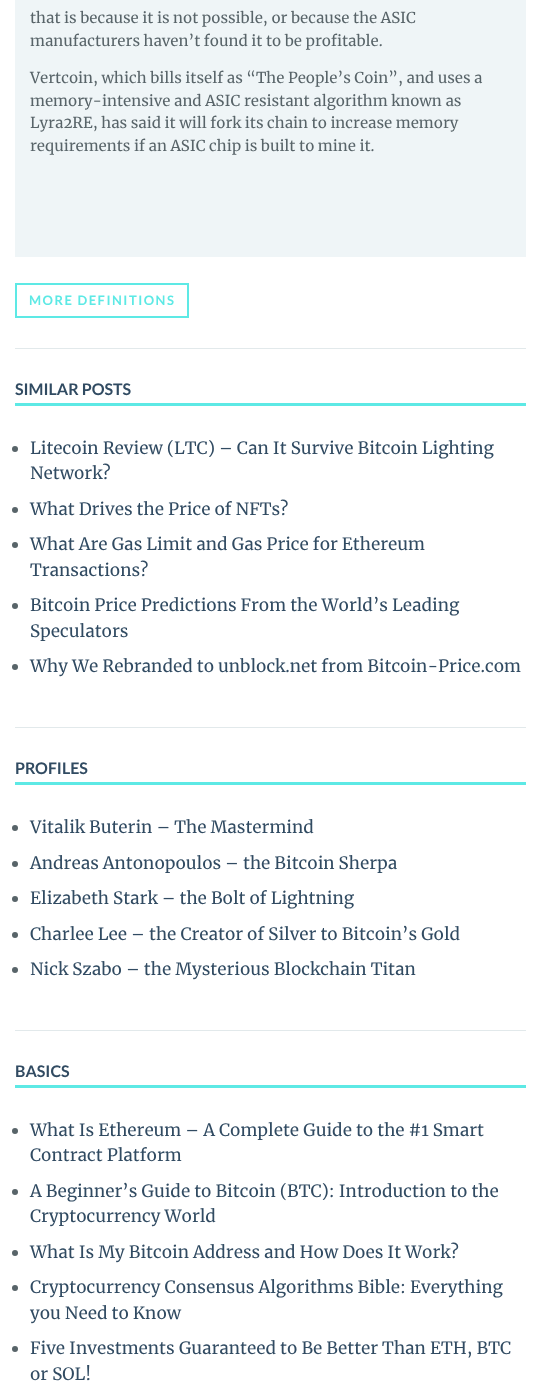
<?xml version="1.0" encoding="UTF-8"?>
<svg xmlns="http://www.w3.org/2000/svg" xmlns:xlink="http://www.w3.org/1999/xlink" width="541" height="1396">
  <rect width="100%" height="100%" fill="#ffffff" />
  <rect x="15" y="348" width="511" height="1" fill="#e2e9eb" />
  <rect x="15" width="511" height="257" fill="#eff5f7" />
  <rect x="16" y="284" width="172" height="33" fill="none" stroke="#5de9e5" stroke-width="2" />
  <rect x="15" y="727" width="511" height="1" fill="#e2e9eb" />
  <rect x="15" y="403" width="511" height="3" fill="#5de9e5" />
  <circle cx="15" cy="449" r="3" fill="#586469" />
  <circle cx="15" cy="510" r="3" fill="#586469" />
  <circle cx="15" cy="545" r="3" fill="#586469" />
  <circle cx="15" cy="606" r="3" fill="#586469" />
  <circle cx="15" cy="667" r="3" fill="#586469" />
  <rect x="15" y="1030" width="511" height="1" fill="#e2e9eb" />
  <rect x="15" y="782" width="511" height="3" fill="#5de9e5" />
  <circle cx="15" cy="828" r="3" fill="#586469" />
  <circle cx="15" cy="864" r="3" fill="#586469" />
  <circle cx="15" cy="899" r="3" fill="#586469" />
  <circle cx="15" cy="935" r="3" fill="#586469" />
  <circle cx="15" cy="970" r="3" fill="#586469" />
  <rect x="15" y="1085" width="511" height="3" fill="#5de9e5" />
  <circle cx="15" cy="1131" r="3" fill="#586469" />
  <circle cx="15" cy="1192" r="3" fill="#586469" />
  <circle cx="15" cy="1253" r="3" fill="#586469" />
  <circle cx="15" cy="1288" r="3" fill="#586469" />
  <circle cx="15" cy="1349" r="3" fill="#586469" />
  <text x="30" y="23" style="font-family: Merriweather; font-size: 15px; fill: #586469">that is because it is not possible, or because the ASIC</text>
  <text x="30" y="46" style="font-family: Merriweather; font-size: 15px; fill: #586469">manufacturers haven’t found it to be profitable.</text>
  <text x="30" y="83" style="font-family: Merriweather; font-size: 15px; fill: #586469">Vertcoin, which bills itself as “The People’s Coin”, and uses a</text>
  <text x="30" y="106" style="font-family: Merriweather; font-size: 15px; fill: #586469">memory-intensive and ASIC resistant algorithm known as</text>
  <text x="30" y="128" style="font-family: Merriweather; font-size: 15px; fill: #586469">Lyra2RE, has said it will fork its chain to increase memory</text>
  <text x="30" y="151" style="font-family: Merriweather; font-size: 15px; fill: #586469">requirements if an ASIC chip is built to mine it.</text>
  <text x="29" y="305" style="font-family: Lato; font-size: 13px; font-weight: bold; letter-spacing: 1.5px; fill: #5de9e5">MORE DEFINITIONS</text>
  <text x="15" y="395" style="font-family: Lato; font-size: 16px; font-weight: bold; fill: #314b62">SIMILAR POSTS</text>
  <text x="30" y="454" style="font-family: Merriweather; font-size: 17px; fill: #314b62">Litecoin Review (LTC) – Can It Survive Bitcoin Lighting</text>
  <text x="30" y="479" style="font-family: Merriweather; font-size: 17px; fill: #314b62">Network?</text>
  <text x="30" y="515" style="font-family: Merriweather; font-size: 17px; fill: #314b62">What Drives the Price of NFTs?</text>
  <text x="30" y="550" style="font-family: Merriweather; font-size: 17px; fill: #314b62">What Are Gas Limit and Gas Price for Ethereum</text>
  <text x="30" y="576" style="font-family: Merriweather; font-size: 17px; fill: #314b62">Transactions?</text>
  <text x="30" y="611" style="font-family: Merriweather; font-size: 17px; fill: #314b62">Bitcoin Price Predictions From the World’s Leading</text>
  <text x="30" y="637" style="font-family: Merriweather; font-size: 17px; fill: #314b62">Speculators</text>
  <text x="30" y="672" style="font-family: Merriweather; font-size: 17px; fill: #314b62">Why We Rebranded to unblock.net from Bitcoin-Price.com</text>
  <text x="15" y="774" style="font-family: Lato; font-size: 16px; font-weight: bold; fill: #314b62">PROFILES</text>
  <text x="30" y="833" style="font-family: Merriweather; font-size: 17px; fill: #314b62">Vitalik Buterin – The Mastermind</text>
  <text x="30" y="869" style="font-family: Merriweather; font-size: 17px; fill: #314b62">Andreas Antonopoulos – the Bitcoin Sherpa</text>
  <text x="30" y="904" style="font-family: Merriweather; font-size: 17px; fill: #314b62">Elizabeth Stark – the Bolt of Lightning</text>
  <text x="30" y="940" style="font-family: Merriweather; font-size: 17px; fill: #314b62">Charlee Lee – the Creator of Silver to Bitcoin’s Gold</text>
  <text x="30" y="975" style="font-family: Merriweather; font-size: 17px; fill: #314b62">Nick Szabo – the Mysterious Blockchain Titan</text>
  <text x="15" y="1077" style="font-family: Lato; font-size: 16px; font-weight: bold; fill: #314b62">BASICS</text>
  <text x="30" y="1136" style="font-family: Merriweather; font-size: 17px; fill: #314b62">What Is Ethereum – A Complete Guide to the #1 Smart</text>
  <text x="30" y="1161" style="font-family: Merriweather; font-size: 17px; fill: #314b62">Contract Platform</text>
  <text x="30" y="1197" style="font-family: Merriweather; font-size: 17px; fill: #314b62">A Beginner’s Guide to Bitcoin (BTC): Introduction to the</text>
  <text x="30" y="1222" style="font-family: Merriweather; font-size: 17px; fill: #314b62">Cryptocurrency World</text>
  <text x="30" y="1258" style="font-family: Merriweather; font-size: 17px; fill: #314b62">What Is My Bitcoin Address and How Does It Work?</text>
  <text x="30" y="1293" style="font-family: Merriweather; font-size: 17px; fill: #314b62">Cryptocurrency Consensus Algorithms Bible: Everything</text>
  <text x="30" y="1319" style="font-family: Merriweather; font-size: 17px; fill: #314b62">you Need to Know</text>
  <text x="30" y="1354" style="font-family: Merriweather; font-size: 17px; fill: #314b62">Five Investments Guaranteed to Be Better Than ETH, BTC</text>
  <text x="30" y="1380" style="font-family: Merriweather; font-size: 17px; fill: #314b62">or SOL!</text>
</svg>
